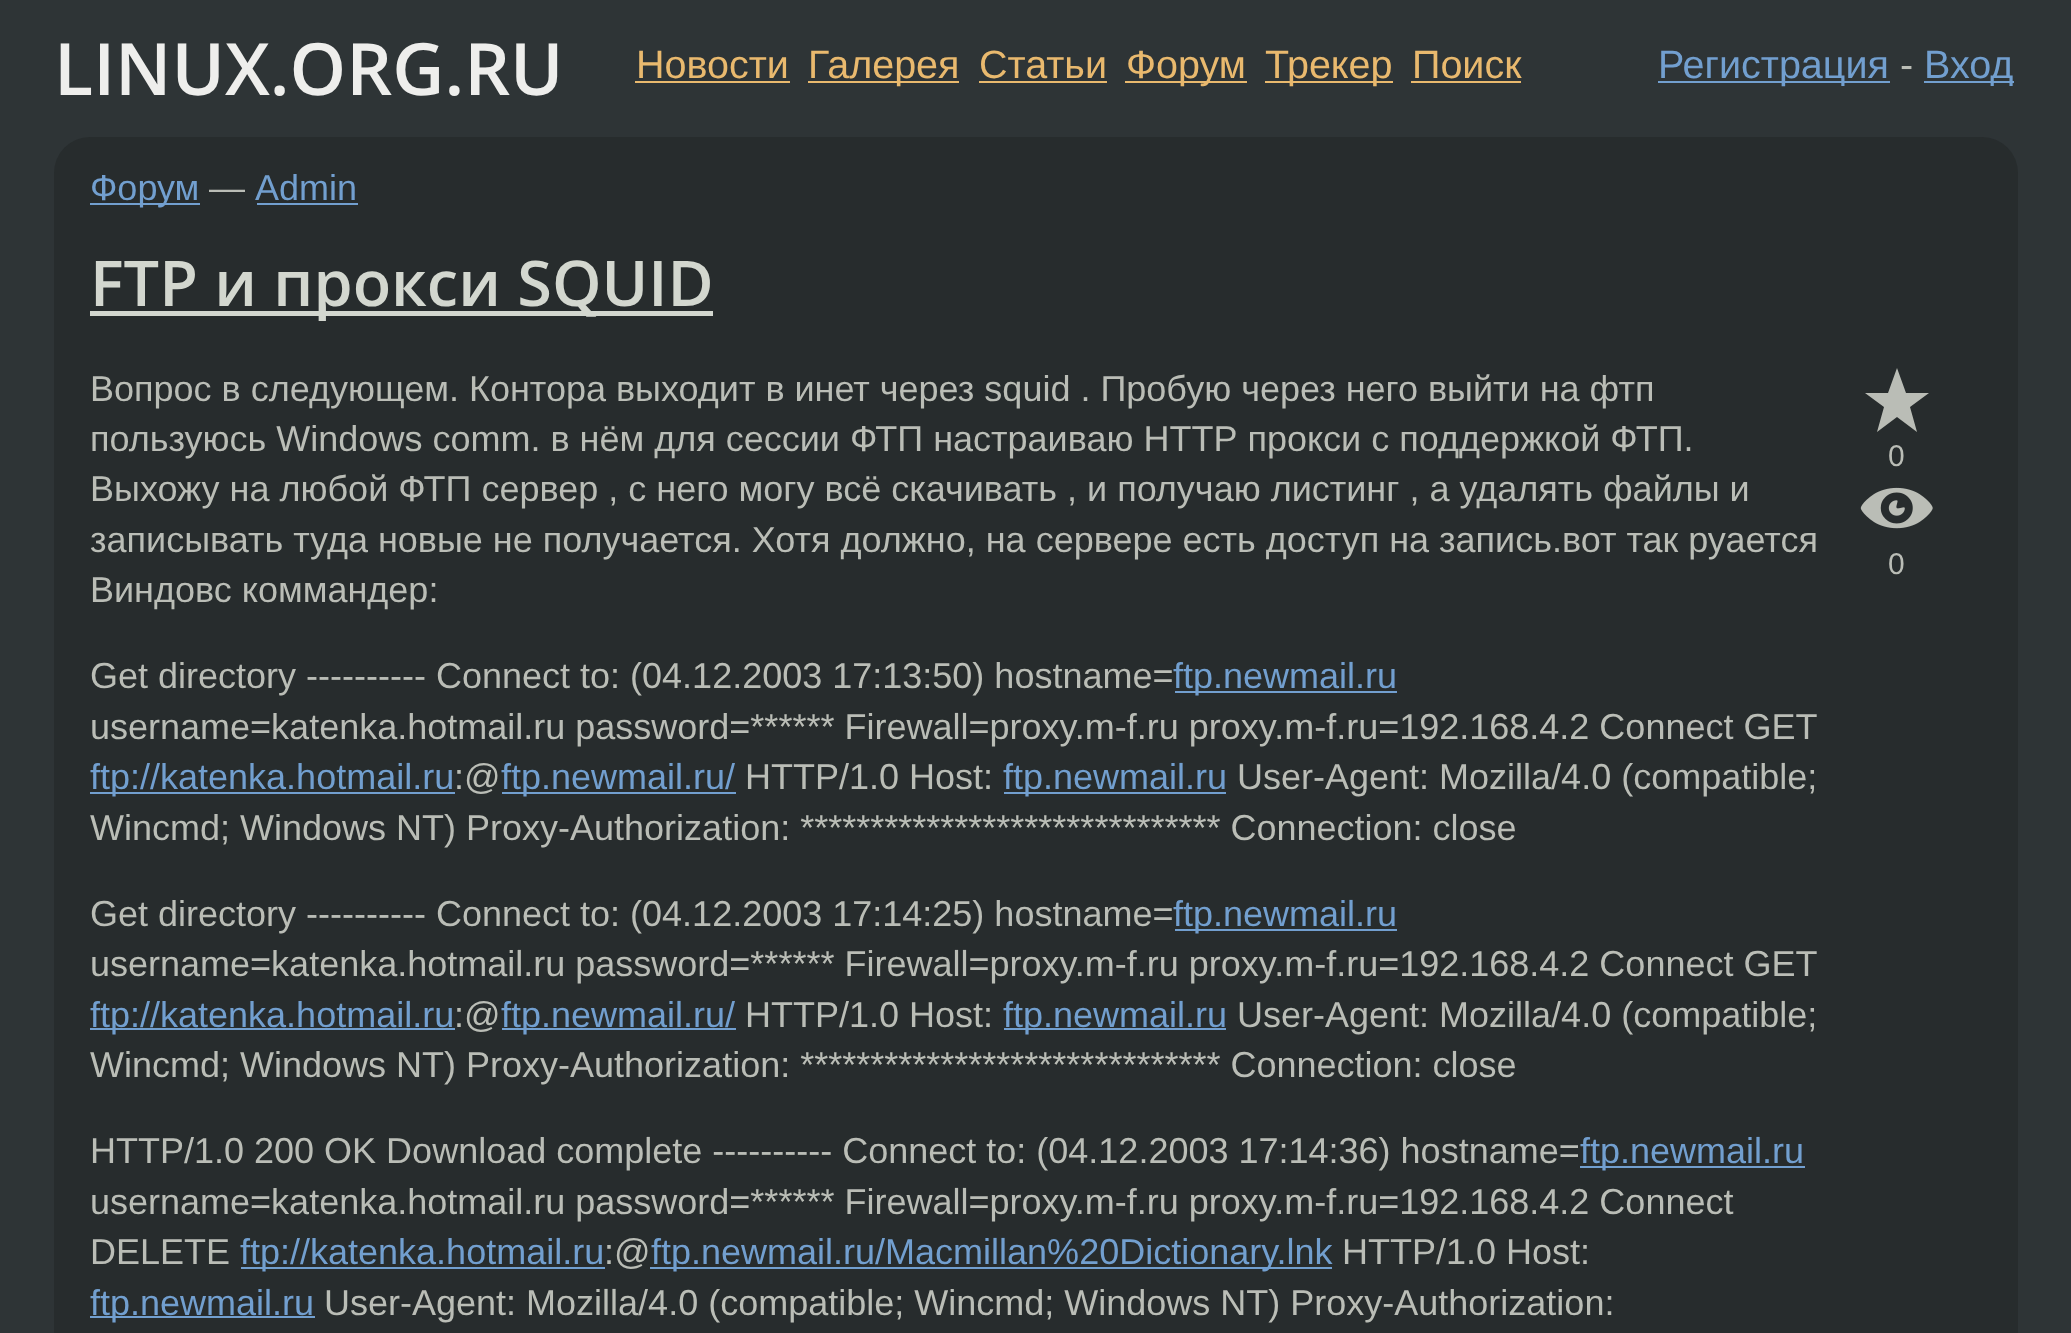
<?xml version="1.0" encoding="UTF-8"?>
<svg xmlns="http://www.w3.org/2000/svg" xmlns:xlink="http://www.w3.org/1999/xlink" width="2071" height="1333">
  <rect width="100%" height="100%" fill="#2e3436" />
  <rect x="635" y="81" width="155" height="2" fill="#e9b96e" />
  <rect x="808" y="81" width="151" height="2" fill="#e9b96e" />
  <rect x="979" y="81" width="128" height="2" fill="#e9b96e" />
  <rect x="1125" y="81" width="122" height="2" fill="#e9b96e" />
  <rect x="1265" y="81" width="128" height="2" fill="#e9b96e" />
  <rect x="1411" y="81" width="110" height="2" fill="#e9b96e" />
  <rect x="1658" y="81" width="232" height="2" fill="#729fcf" />
  <rect x="1924" y="81" width="90" height="2" fill="#729fcf" />
  <rect x="54" y="137" width="1964" height="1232" rx="36" fill="#272c2d" />
  <rect x="90" y="203" width="110" height="2" fill="#729fcf" />
  <rect x="257" y="203" width="101" height="2" fill="#729fcf" />
  <rect x="90" y="311" width="623" height="5" fill="#d3d7cf" />
  <rect x="1175" y="691" width="222" height="2" fill="#729fcf" />
  <rect x="90" y="792" width="365" height="2" fill="#729fcf" />
  <rect x="502" y="792" width="234" height="2" fill="#729fcf" />
  <rect x="1004" y="792" width="222" height="2" fill="#729fcf" />
  <rect x="1175" y="929" width="222" height="2" fill="#729fcf" />
  <rect x="90" y="1028" width="365" height="2" fill="#729fcf" />
  <rect x="502" y="1028" width="234" height="2" fill="#729fcf" />
  <rect x="1004" y="1028" width="222" height="2" fill="#729fcf" />
  <rect x="1580" y="1166" width="225" height="2" fill="#729fcf" />
  <rect x="241" y="1267" width="364" height="2" fill="#729fcf" />
  <rect x="650" y="1267" width="682" height="2" fill="#729fcf" />
  <rect x="90" y="1316" width="225" height="2" fill="#729fcf" />
  <path d="M 1897 368 l 9 25 h 23 l -19 14 l 7 25 l -20 -15 l -20 15 l 7 -25 l -19 -14 h 23 z" fill="#babdb6" />
  <image x="1860" y="487" width="73" height="42" xlink:href="image1.png" />
  <text x="54" y="95" style="font-family: Open Sans; font-size: 72px; font-weight: 600; fill: #eeeeec">LINUX.ORG.RU</text>
  <text x="636" y="78" style="font-family: Liberation Sans; font-size: 39.5px; fill: #e9b96e">Новости</text>
  <text x="808" y="78" style="font-family: Liberation Sans; font-size: 39.5px; fill: #e9b96e">Галерея</text>
  <text x="979" y="78" style="font-family: Liberation Sans; font-size: 39.5px; fill: #e9b96e">Статьи</text>
  <text x="1126" y="78" style="font-family: Liberation Sans; font-size: 39.5px; fill: #e9b96e">Форум</text>
  <text x="1265" y="78" style="font-family: Liberation Sans; font-size: 39.5px; fill: #e9b96e">Трекер</text>
  <text x="1412" y="78" style="font-family: Liberation Sans; font-size: 39.5px; fill: #e9b96e">Поиск</text>
  <text x="1658" y="78" style="font-family: Liberation Sans; font-size: 39.5px; fill: #729fcf">Регистрация</text>
  <text x="1900" y="78" style="font-family: Liberation Sans; font-size: 39.5px; fill: #babdb6">-</text>
  <text x="1924" y="78" style="font-family: Liberation Sans; font-size: 39.5px; fill: #729fcf">Вход</text>
  <text x="90" y="200" style="font-family: Liberation Sans; font-size: 36px; fill: #729fcf">Форум</text>
  <text x="209" y="200" style="font-family: Liberation Sans; font-size: 36px; fill: #babdb6">—</text>
  <text x="255" y="200" style="font-family: Liberation Sans; font-size: 36px; fill: #729fcf">Admin</text>
  <text x="90" y="306" style="font-family: Open Sans; font-size: 63px; font-weight: 600; fill: #d3d7cf">FTP и прокси SQUID</text>
  <text x="90" y="401" style="font-family: Liberation Sans; font-size: 36px; fill: #babdb6">Вопрос в следующем. Контора выходит в инет через squid . Пробую через него выйти на фтп</text>
  <text x="90" y="451" style="font-family: Liberation Sans; font-size: 36px; fill: #babdb6">пользуюсь Windows comm. в нём для сессии ФТП настраиваю НТТР прокси с поддержкой ФТП.</text>
  <text x="90" y="501" style="font-family: Liberation Sans; font-size: 36px; fill: #babdb6">Выхожу на любой ФТП сервер , с него могу всё скачивать , и получаю листинг , а удалять файлы и</text>
  <text x="90" y="552" style="font-family: Liberation Sans; font-size: 36px; fill: #babdb6">записывать туда новые не получается. Хотя должно, на сервере есть доступ на запись.вот так руается</text>
  <text x="90" y="602" style="font-family: Liberation Sans; font-size: 36px; fill: #babdb6">Виндовс коммандер:</text>
  <text x="90" y="688" style="font-family: Liberation Sans; font-size: 36px; fill: #babdb6">Get directory ---------- Connect to: (04.12.2003 17:13:50) hostname=</text>
  <text x="1173" y="688" style="font-family: Liberation Sans; font-size: 36px; fill: #729fcf">ftp.newmail.ru</text>
  <text x="90" y="739" style="font-family: Liberation Sans; font-size: 36px; fill: #babdb6">username=katenka.hotmail.ru password=****** Firewall=proxy.m-f.ru proxy.m-f.ru=192.168.4.2 Connect GET</text>
  <text x="90" y="789" style="font-family: Liberation Sans; font-size: 36px; fill: #729fcf">ftp://katenka.hotmail.ru</text>
  <text x="454" y="789" style="font-family: Liberation Sans; font-size: 36px; fill: #babdb6">:@</text>
  <text x="501" y="789" style="font-family: Liberation Sans; font-size: 36px; fill: #729fcf">ftp.newmail.ru/</text>
  <text x="745" y="789" style="font-family: Liberation Sans; font-size: 36px; fill: #babdb6">HTTP/1.0 Host:</text>
  <text x="1003" y="789" style="font-family: Liberation Sans; font-size: 36px; fill: #729fcf">ftp.newmail.ru</text>
  <text x="1237" y="789" style="font-family: Liberation Sans; font-size: 36px; fill: #babdb6">User-Agent: Mozilla/4.0 (compatible;</text>
  <text x="90" y="840" style="font-family: Liberation Sans; font-size: 36px; fill: #babdb6">Wincmd; Windows NT) Proxy-Authorization: ****************************** Connection: close</text>
  <text x="90" y="926" style="font-family: Liberation Sans; font-size: 36px; fill: #babdb6">Get directory ---------- Connect to: (04.12.2003 17:14:25) hostname=</text>
  <text x="1173" y="926" style="font-family: Liberation Sans; font-size: 36px; fill: #729fcf">ftp.newmail.ru</text>
  <text x="90" y="976" style="font-family: Liberation Sans; font-size: 36px; fill: #babdb6">username=katenka.hotmail.ru password=****** Firewall=proxy.m-f.ru proxy.m-f.ru=192.168.4.2 Connect GET</text>
  <text x="90" y="1027" style="font-family: Liberation Sans; font-size: 36px; fill: #729fcf">ftp://katenka.hotmail.ru</text>
  <text x="454" y="1027" style="font-family: Liberation Sans; font-size: 36px; fill: #babdb6">:@</text>
  <text x="501" y="1027" style="font-family: Liberation Sans; font-size: 36px; fill: #729fcf">ftp.newmail.ru/</text>
  <text x="745" y="1027" style="font-family: Liberation Sans; font-size: 36px; fill: #babdb6">HTTP/1.0 Host:</text>
  <text x="1003" y="1027" style="font-family: Liberation Sans; font-size: 36px; fill: #729fcf">ftp.newmail.ru</text>
  <text x="1237" y="1027" style="font-family: Liberation Sans; font-size: 36px; fill: #babdb6">User-Agent: Mozilla/4.0 (compatible;</text>
  <text x="90" y="1077" style="font-family: Liberation Sans; font-size: 36px; fill: #babdb6">Wincmd; Windows NT) Proxy-Authorization: ****************************** Connection: close</text>
  <text x="90" y="1163" style="font-family: Liberation Sans; font-size: 36px; fill: #babdb6">HTTP/1.0 200 OK Download complete ---------- Connect to: (04.12.2003 17:14:36) hostname=</text>
  <text x="1580" y="1163" style="font-family: Liberation Sans; font-size: 36px; fill: #729fcf">ftp.newmail.ru</text>
  <text x="90" y="1214" style="font-family: Liberation Sans; font-size: 36px; fill: #babdb6">username=katenka.hotmail.ru password=****** Firewall=proxy.m-f.ru proxy.m-f.ru=192.168.4.2 Connect</text>
  <text x="90" y="1264" style="font-family: Liberation Sans; font-size: 36px; fill: #babdb6">DELETE</text>
  <text x="240" y="1264" style="font-family: Liberation Sans; font-size: 36px; fill: #729fcf">ftp://katenka.hotmail.ru</text>
  <text x="604" y="1264" style="font-family: Liberation Sans; font-size: 36px; fill: #babdb6">:@</text>
  <text x="651" y="1264" style="font-family: Liberation Sans; font-size: 36px; fill: #729fcf">ftp.newmail.ru/Macmillan%20Dictionary.lnk</text>
  <text x="1342" y="1264" style="font-family: Liberation Sans; font-size: 36px; fill: #babdb6">HTTP/1.0 Host:</text>
  <text x="90" y="1315" style="font-family: Liberation Sans; font-size: 36px; fill: #729fcf">ftp.newmail.ru</text>
  <text x="324" y="1315" style="font-family: Liberation Sans; font-size: 36px; fill: #babdb6">User-Agent: Mozilla/4.0 (compatible; Wincmd; Windows NT) Proxy-Authorization:</text>
  <text x="1888" y="466" style="font-family: Liberation Sans; font-size: 30px; fill: #babdb6">0</text>
  <text x="1888" y="574" style="font-family: Liberation Sans; font-size: 30px; fill: #babdb6">0</text>
</svg>
